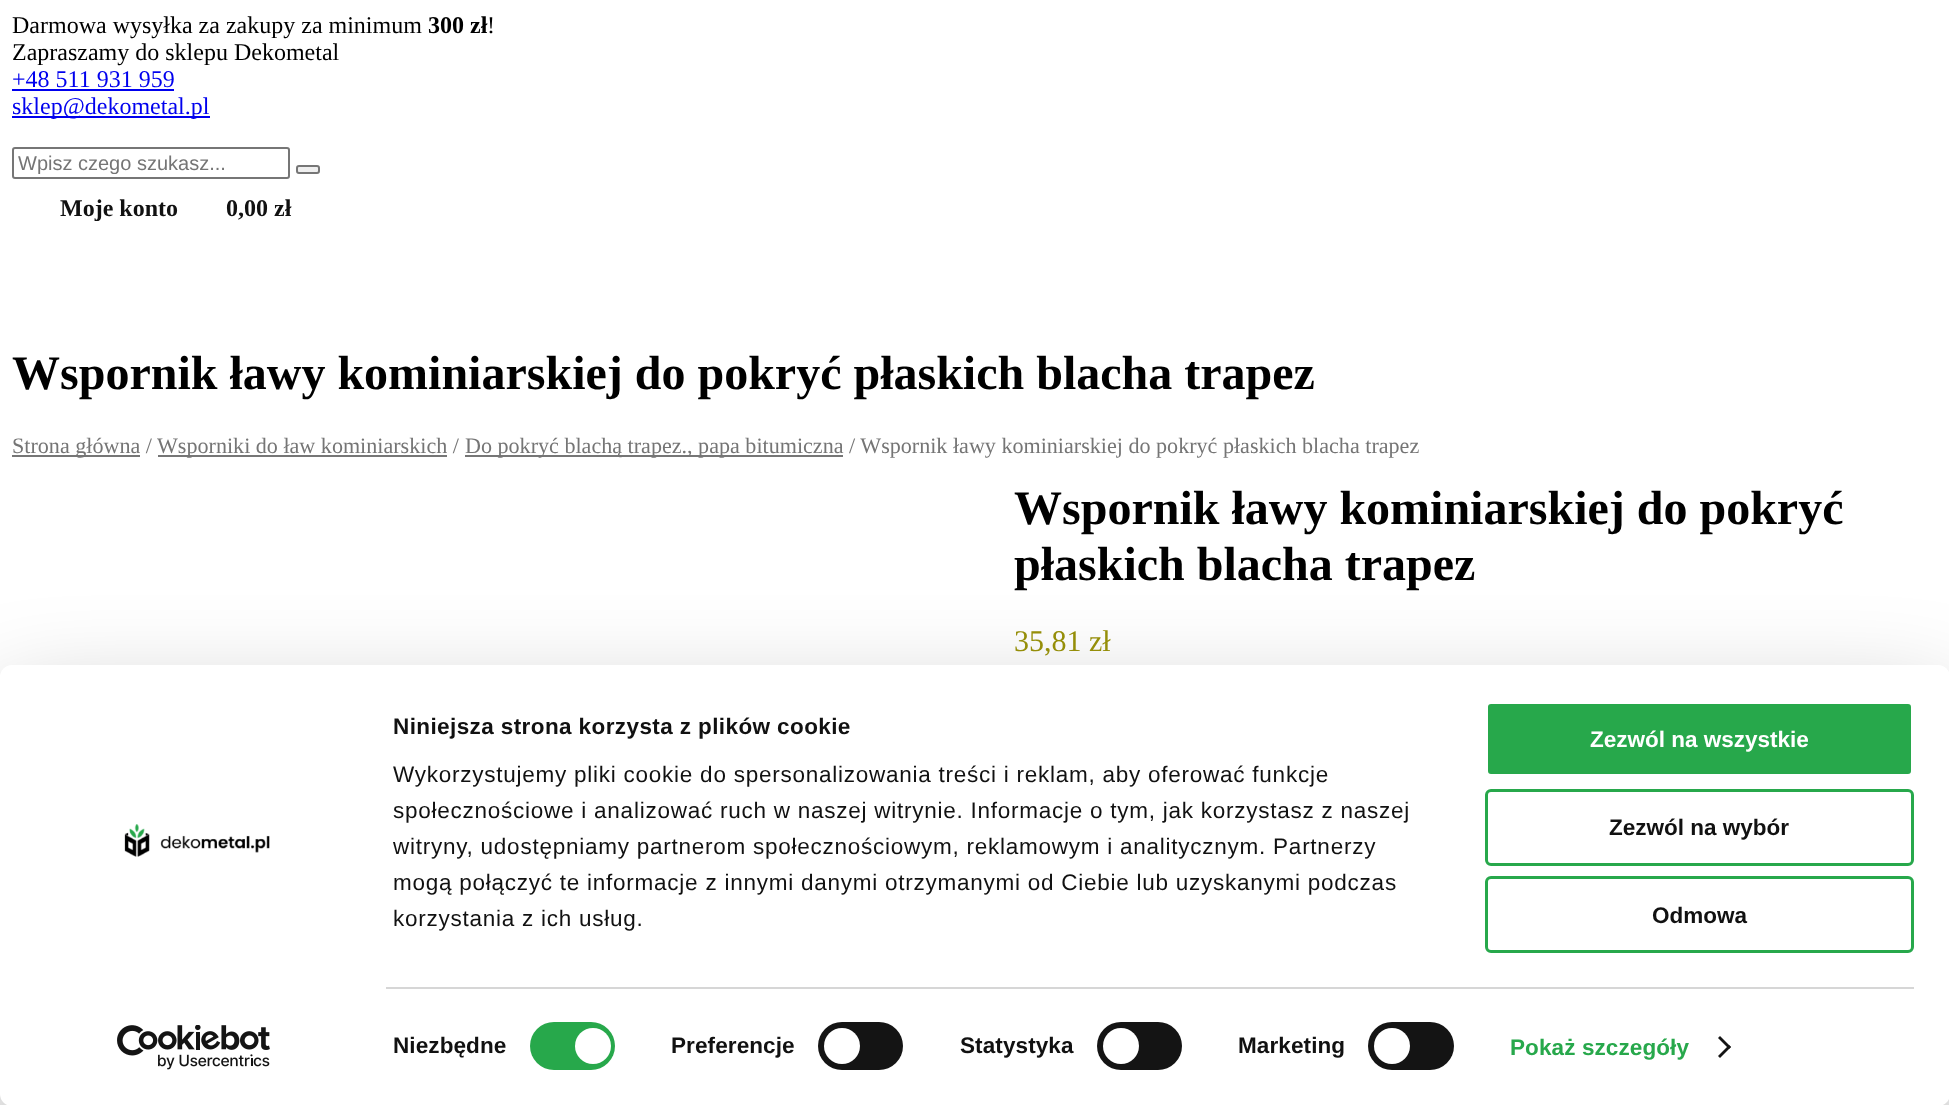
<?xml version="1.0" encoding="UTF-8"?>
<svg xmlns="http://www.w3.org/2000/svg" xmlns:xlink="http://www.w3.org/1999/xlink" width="1949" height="1105">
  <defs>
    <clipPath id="clip1"><rect x="18" y="152" width="246" height="22" /></clipPath>
  </defs>
  <rect width="100%" height="100%" fill="#ffffff" />
  <rect x="12" y="89" width="162" height="2" fill="#0000ee" />
  <rect x="12" y="116" width="198" height="2" fill="#0000ee" />
  <rect x="13" y="148" width="276" height="30" rx="2" fill="none" stroke="#767676" stroke-width="2" />
  <rect x="297" y="166" width="22" height="7" rx="2" fill="#efefef" stroke="#767676" stroke-width="2" />
  <rect x="12" y="455" width="128" height="2" fill="#767676" />
  <rect x="158" y="455" width="289" height="2" fill="#767676" />
  <rect x="465" y="455" width="378" height="2" fill="#767676" />
  <rect y="710" width="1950" height="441" rx="12" fill="#000000" fill-opacity="0.3" filter="blur(52.5px)" />
  <rect y="665" width="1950" height="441" rx="12" fill="#ffffff" />
  <image x="124" y="824" width="146" height="33" xlink:href="image1.png" />
  <image x="117" y="1025" width="153" height="45" xlink:href="image2.png" />
  <rect x="386" y="987" width="1528" height="2" fill="#d6d6d6" />
  <rect x="530" y="1022" width="85" height="48" rx="24" fill="#27a84b" />
  <circle cx="593" cy="1046" r="18" fill="#ffffff" />
  <rect x="818" y="1022" width="85" height="48" rx="24" fill="#141414" />
  <circle cx="842" cy="1046" r="18" fill="#ffffff" />
  <rect x="1097" y="1022" width="85" height="48" rx="24" fill="#141414" />
  <circle cx="1121" cy="1046" r="18" fill="#ffffff" />
  <rect x="1368" y="1022" width="86" height="48" rx="24" fill="#141414" />
  <circle cx="1392" cy="1046" r="18" fill="#ffffff" />
  <path d="M 1720 1036 l 11 11 l -2 2 l -11 -11 z" fill="#141414" />
  <path d="M 1729 1045 l 2 2 l -11 11 l -2 -2 z" fill="#141414" />
  <rect x="1486.5" y="702.5" width="426" height="73" rx="4.5" fill="#27a84b" stroke="#ffffff" stroke-width="3" />
  <rect x="1486.5" y="790.5" width="426" height="74" rx="4.5" fill="none" stroke="#27a84b" stroke-width="3" />
  <rect x="1486.5" y="877.5" width="426" height="74" rx="4.5" fill="none" stroke="#27a84b" stroke-width="3" />
  <text x="12" y="33" style="font-family: Liberation Serif; font-size: 24px; fill: #000000">Darmowa wysyłka za zakupy za minimum</text>
  <text x="428" y="33" style="font-family: Liberation Serif; font-size: 24px; font-weight: bold; fill: #000000">300 zł</text>
  <text x="487" y="33" style="font-family: Liberation Serif; font-size: 24px; fill: #000000">!</text>
  <text x="12" y="60" style="font-family: Liberation Serif; font-size: 24px; fill: #000000">Zapraszamy do sklepu Dekometal</text>
  <text x="12" y="87" style="font-family: Liberation Serif; font-size: 24px; fill: #0000ee">+48 511 931 959</text>
  <text x="12" y="114" style="font-family: Liberation Serif; font-size: 24px; fill: #0000ee">sklep@dekometal.pl</text>
  <g clip-path="url(#clip1)">
    <text x="18" y="170" style="font-family: Liberation Sans; font-size: 20px; fill: #757575">Wpisz czego szukasz...</text>
  </g>
  <text x="60" y="216" style="font-family: Liberation Serif; font-size: 24px; font-weight: bold; fill: #111111">Moje konto</text>
  <text x="226" y="216" style="font-family: Liberation Serif; font-size: 24px; font-weight: bold; fill: #111111">0,00 zł</text>
  <text x="12" y="389" style="font-family: Liberation Serif; font-size: 48px; font-weight: bold; fill: #000000">Wspornik ławy kominiarskiej do pokryć płaskich blacha trapez</text>
  <text x="12" y="453" style="font-family: Liberation Serif; font-size: 22.1px; fill: #757575">Strona główna /</text>
  <text x="157" y="453" style="font-family: Liberation Serif; font-size: 22.1px; fill: #757575">Wsporniki do ław kominiarskich /</text>
  <text x="465" y="453" style="font-family: Liberation Serif; font-size: 22.1px; fill: #757575">Do pokryć blachą trapez., papa bitumiczna / Wspornik ławy kominiarskiej do pokryć płaskich blacha trapez</text>
  <text x="1014" y="524" style="font-family: Liberation Serif; font-size: 48px; font-weight: bold; fill: #000000">Wspornik ławy kominiarskiej do pokryć</text>
  <text x="1014" y="580" style="font-family: Liberation Serif; font-size: 48px; font-weight: bold; fill: #000000">płaskich blacha trapez</text>
  <text x="1014" y="651" style="font-family: Liberation Serif; font-size: 30px; fill: #958e09">35,81 zł</text>
  <text x="393" y="734" style="font-family: Liberation Sans; font-size: 22.5px; font-weight: bold; letter-spacing: 0.4px; fill: #111111">Niniejsza strona korzysta z plików cookie</text>
  <text x="393" y="782" style="font-family: Liberation Sans; font-size: 22.5px; letter-spacing: 0.75px; fill: #111111">Wykorzystujemy pliki cookie do spersonalizowania treści i reklam, aby oferować funkcje</text>
  <text x="393" y="818" style="font-family: Liberation Sans; font-size: 22.5px; letter-spacing: 0.75px; fill: #111111">społecznościowe i analizować ruch w naszej witrynie. Informacje o tym, jak korzystasz z naszej</text>
  <text x="393" y="854" style="font-family: Liberation Sans; font-size: 22.5px; letter-spacing: 0.75px; fill: #111111">witryny, udostępniamy partnerom społecznościowym, reklamowym i analitycznym. Partnerzy</text>
  <text x="393" y="890" style="font-family: Liberation Sans; font-size: 22.5px; letter-spacing: 0.75px; fill: #111111">mogą połączyć te informacje z innymi danymi otrzymanymi od Ciebie lub uzyskanymi podczas</text>
  <text x="393" y="926" style="font-family: Liberation Sans; font-size: 22.5px; letter-spacing: 0.75px; fill: #111111">korzystania z ich usług.</text>
  <text x="393" y="1053" style="font-family: Liberation Sans; font-size: 22.5px; font-weight: bold; letter-spacing: 0.1px; fill: #111111">Niezbędne</text>
  <text x="671" y="1053" style="font-family: Liberation Sans; font-size: 22.5px; font-weight: bold; letter-spacing: 0.1px; fill: #111111">Preferencje</text>
  <text x="960" y="1053" style="font-family: Liberation Sans; font-size: 22.5px; font-weight: bold; letter-spacing: 0.1px; fill: #111111">Statystyka</text>
  <text x="1238" y="1053" style="font-family: Liberation Sans; font-size: 22.5px; font-weight: bold; letter-spacing: 0.1px; fill: #111111">Marketing</text>
  <text x="1510" y="1055" style="font-family: Liberation Sans; font-size: 22.5px; font-weight: bold; letter-spacing: 0.1px; fill: #27a84b">Pokaż szczegóły</text>
  <text x="1590" y="747" style="font-family: Liberation Sans; font-size: 22.5px; font-weight: bold; fill: #ffffff">Zezwól na wszystkie</text>
  <text x="1609" y="835" style="font-family: Liberation Sans; font-size: 22.5px; font-weight: bold; fill: #111111">Zezwól na wybór</text>
  <text x="1652" y="923" style="font-family: Liberation Sans; font-size: 22.5px; font-weight: bold; fill: #111111">Odmowa</text>
</svg>
